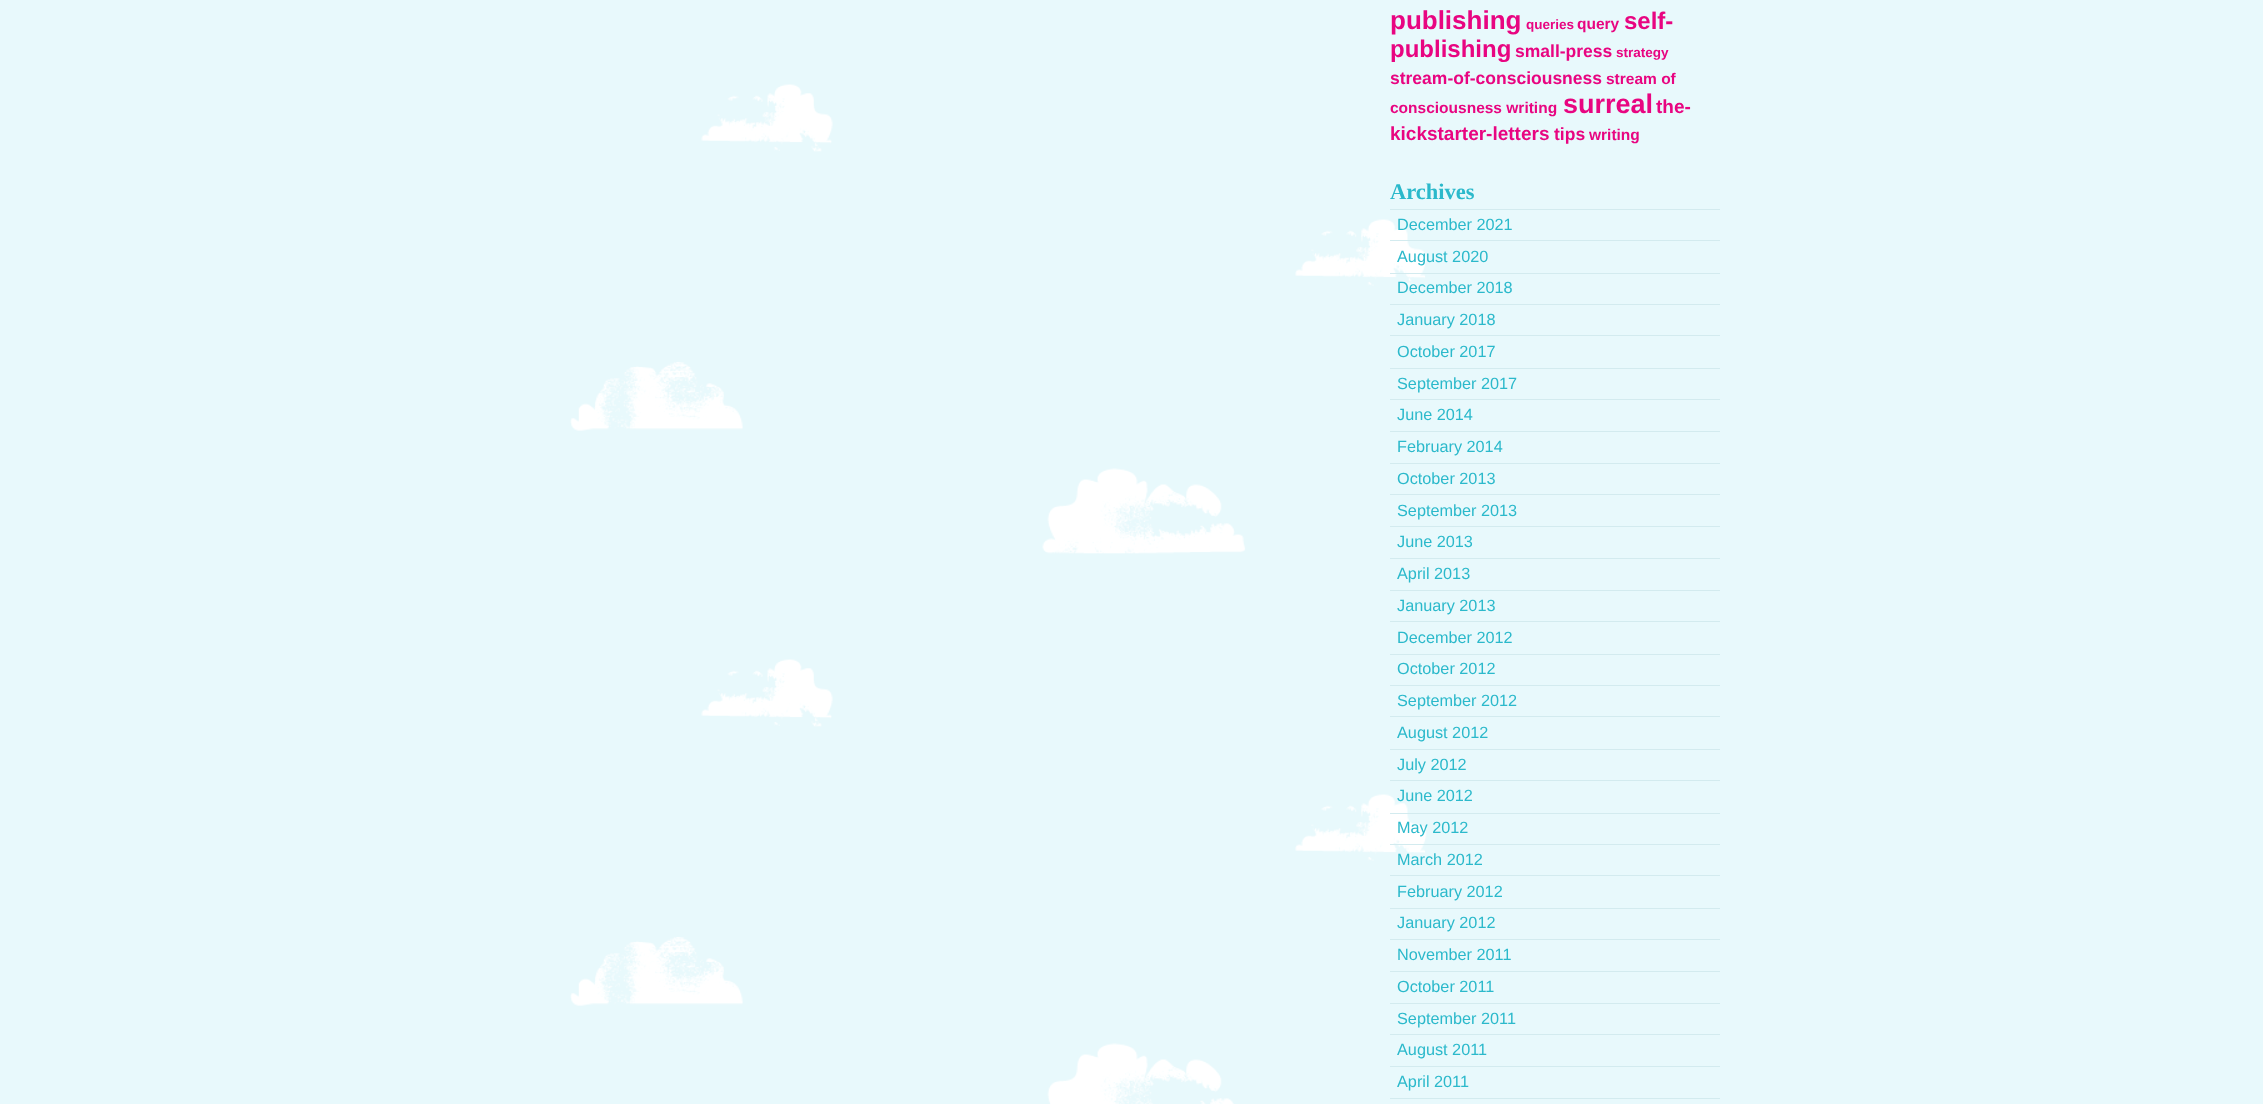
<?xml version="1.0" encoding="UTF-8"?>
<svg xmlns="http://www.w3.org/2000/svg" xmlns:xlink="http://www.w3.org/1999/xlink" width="2263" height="1104">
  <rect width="100%" height="100%" fill="#e8f9fc" />
  <image x="570" y="84" width="857" height="1020" xlink:href="image1.png" />
  <rect x="1390" y="209" width="330" height="1" fill="#d3ebef" />
  <rect x="1390" y="240" width="330" height="1" fill="#d3ebef" />
  <rect x="1390" y="273" width="330" height="1" fill="#d3ebef" />
  <rect x="1390" y="304" width="330" height="1" fill="#d3ebef" />
  <rect x="1390" y="335" width="330" height="1" fill="#d3ebef" />
  <rect x="1390" y="368" width="330" height="1" fill="#d3ebef" />
  <rect x="1390" y="399" width="330" height="1" fill="#d3ebef" />
  <rect x="1390" y="431" width="330" height="1" fill="#d3ebef" />
  <rect x="1390" y="463" width="330" height="1" fill="#d3ebef" />
  <rect x="1390" y="494" width="330" height="1" fill="#d3ebef" />
  <rect x="1390" y="526" width="330" height="1" fill="#d3ebef" />
  <rect x="1390" y="558" width="330" height="1" fill="#d3ebef" />
  <rect x="1390" y="590" width="330" height="1" fill="#d3ebef" />
  <rect x="1390" y="621" width="330" height="1" fill="#d3ebef" />
  <rect x="1390" y="654" width="330" height="1" fill="#d3ebef" />
  <rect x="1390" y="685" width="330" height="1" fill="#d3ebef" />
  <rect x="1390" y="716" width="330" height="1" fill="#d3ebef" />
  <rect x="1390" y="749" width="330" height="1" fill="#d3ebef" />
  <rect x="1390" y="780" width="330" height="1" fill="#d3ebef" />
  <rect x="1390" y="813" width="330" height="1" fill="#d3ebef" />
  <rect x="1390" y="844" width="330" height="1" fill="#d3ebef" />
  <rect x="1390" y="875" width="330" height="1" fill="#d3ebef" />
  <rect x="1390" y="908" width="330" height="1" fill="#d3ebef" />
  <rect x="1390" y="939" width="330" height="1" fill="#d3ebef" />
  <rect x="1390" y="971" width="330" height="1" fill="#d3ebef" />
  <rect x="1390" y="1003" width="330" height="1" fill="#d3ebef" />
  <rect x="1390" y="1034" width="330" height="1" fill="#d3ebef" />
  <rect x="1390" y="1066" width="330" height="1" fill="#d3ebef" />
  <rect x="1390" y="1098" width="330" height="1" fill="#d3ebef" />
  <text x="1390" y="29" style="font-family: Liberation Sans; font-size: 26px; font-weight: bold; fill: #e80581">publishing</text>
  <text x="1526" y="29" style="font-family: Liberation Sans; font-size: 13.5px; font-weight: bold; fill: #e80581">queries</text>
  <text x="1577" y="29" style="font-family: Liberation Sans; font-size: 15.5px; font-weight: bold; fill: #e80581">query</text>
  <text x="1624" y="29" style="font-family: Liberation Sans; font-size: 24px; font-weight: bold; fill: #e80581">self-</text>
  <text x="1390" y="57" style="font-family: Liberation Sans; font-size: 24px; font-weight: bold; fill: #e80581">publishing</text>
  <text x="1515" y="57" style="font-family: Liberation Sans; font-size: 17.5px; font-weight: bold; fill: #e80581">small-press</text>
  <text x="1616" y="57" style="font-family: Liberation Sans; font-size: 13.5px; font-weight: bold; fill: #e80581">strategy</text>
  <text x="1390" y="84" style="font-family: Liberation Sans; font-size: 17.5px; font-weight: bold; fill: #e80581">stream-of-consciousness</text>
  <text x="1606" y="84" style="font-family: Liberation Sans; font-size: 15.5px; font-weight: bold; fill: #e80581">stream of</text>
  <text x="1390" y="113" style="font-family: Liberation Sans; font-size: 15.5px; font-weight: bold; fill: #e80581">consciousness writing</text>
  <text x="1563" y="113" style="font-family: Liberation Sans; font-size: 27px; font-weight: bold; fill: #e80581">surreal</text>
  <text x="1656" y="113" style="font-family: Liberation Sans; font-size: 19px; font-weight: bold; fill: #e80581">the-</text>
  <text x="1390" y="140" style="font-family: Liberation Sans; font-size: 19px; font-weight: bold; fill: #e80581">kickstarter-letters</text>
  <text x="1554" y="140" style="font-family: Liberation Sans; font-size: 17.5px; font-weight: bold; fill: #e80581">tips</text>
  <text x="1589" y="140" style="font-family: Liberation Sans; font-size: 15.5px; font-weight: bold; fill: #e80581">writing</text>
  <text x="1390" y="199" style="font-family: Liberation Serif; font-size: 22.5px; font-weight: bold; fill: #2bb9cb">Archives</text>
  <text x="1397" y="230" style="font-family: Liberation Sans; font-size: 16.25px; fill: #2bb9cb">December 2021</text>
  <text x="1397" y="262" style="font-family: Liberation Sans; font-size: 16.25px; fill: #2bb9cb">August 2020</text>
  <text x="1397" y="293" style="font-family: Liberation Sans; font-size: 16.25px; fill: #2bb9cb">December 2018</text>
  <text x="1397" y="325" style="font-family: Liberation Sans; font-size: 16.25px; fill: #2bb9cb">January 2018</text>
  <text x="1397" y="357" style="font-family: Liberation Sans; font-size: 16.25px; fill: #2bb9cb">October 2017</text>
  <text x="1397" y="389" style="font-family: Liberation Sans; font-size: 16.25px; fill: #2bb9cb">September 2017</text>
  <text x="1397" y="420" style="font-family: Liberation Sans; font-size: 16.25px; fill: #2bb9cb">June 2014</text>
  <text x="1397" y="452" style="font-family: Liberation Sans; font-size: 16.25px; fill: #2bb9cb">February 2014</text>
  <text x="1397" y="484" style="font-family: Liberation Sans; font-size: 16.25px; fill: #2bb9cb">October 2013</text>
  <text x="1397" y="516" style="font-family: Liberation Sans; font-size: 16.25px; fill: #2bb9cb">September 2013</text>
  <text x="1397" y="547" style="font-family: Liberation Sans; font-size: 16.25px; fill: #2bb9cb">June 2013</text>
  <text x="1397" y="579" style="font-family: Liberation Sans; font-size: 16.25px; fill: #2bb9cb">April 2013</text>
  <text x="1397" y="611" style="font-family: Liberation Sans; font-size: 16.25px; fill: #2bb9cb">January 2013</text>
  <text x="1397" y="643" style="font-family: Liberation Sans; font-size: 16.25px; fill: #2bb9cb">December 2012</text>
  <text x="1397" y="674" style="font-family: Liberation Sans; font-size: 16.25px; fill: #2bb9cb">October 2012</text>
  <text x="1397" y="706" style="font-family: Liberation Sans; font-size: 16.25px; fill: #2bb9cb">September 2012</text>
  <text x="1397" y="738" style="font-family: Liberation Sans; font-size: 16.25px; fill: #2bb9cb">August 2012</text>
  <text x="1397" y="770" style="font-family: Liberation Sans; font-size: 16.25px; fill: #2bb9cb">July 2012</text>
  <text x="1397" y="801" style="font-family: Liberation Sans; font-size: 16.25px; fill: #2bb9cb">June 2012</text>
  <text x="1397" y="833" style="font-family: Liberation Sans; font-size: 16.25px; fill: #2bb9cb">May 2012</text>
  <text x="1397" y="865" style="font-family: Liberation Sans; font-size: 16.25px; fill: #2bb9cb">March 2012</text>
  <text x="1397" y="897" style="font-family: Liberation Sans; font-size: 16.25px; fill: #2bb9cb">February 2012</text>
  <text x="1397" y="928" style="font-family: Liberation Sans; font-size: 16.25px; fill: #2bb9cb">January 2012</text>
  <text x="1397" y="960" style="font-family: Liberation Sans; font-size: 16.25px; fill: #2bb9cb">November 2011</text>
  <text x="1397" y="992" style="font-family: Liberation Sans; font-size: 16.25px; fill: #2bb9cb">October 2011</text>
  <text x="1397" y="1024" style="font-family: Liberation Sans; font-size: 16.25px; fill: #2bb9cb">September 2011</text>
  <text x="1397" y="1055" style="font-family: Liberation Sans; font-size: 16.25px; fill: #2bb9cb">August 2011</text>
  <text x="1397" y="1087" style="font-family: Liberation Sans; font-size: 16.25px; fill: #2bb9cb">April 2011</text>
</svg>
